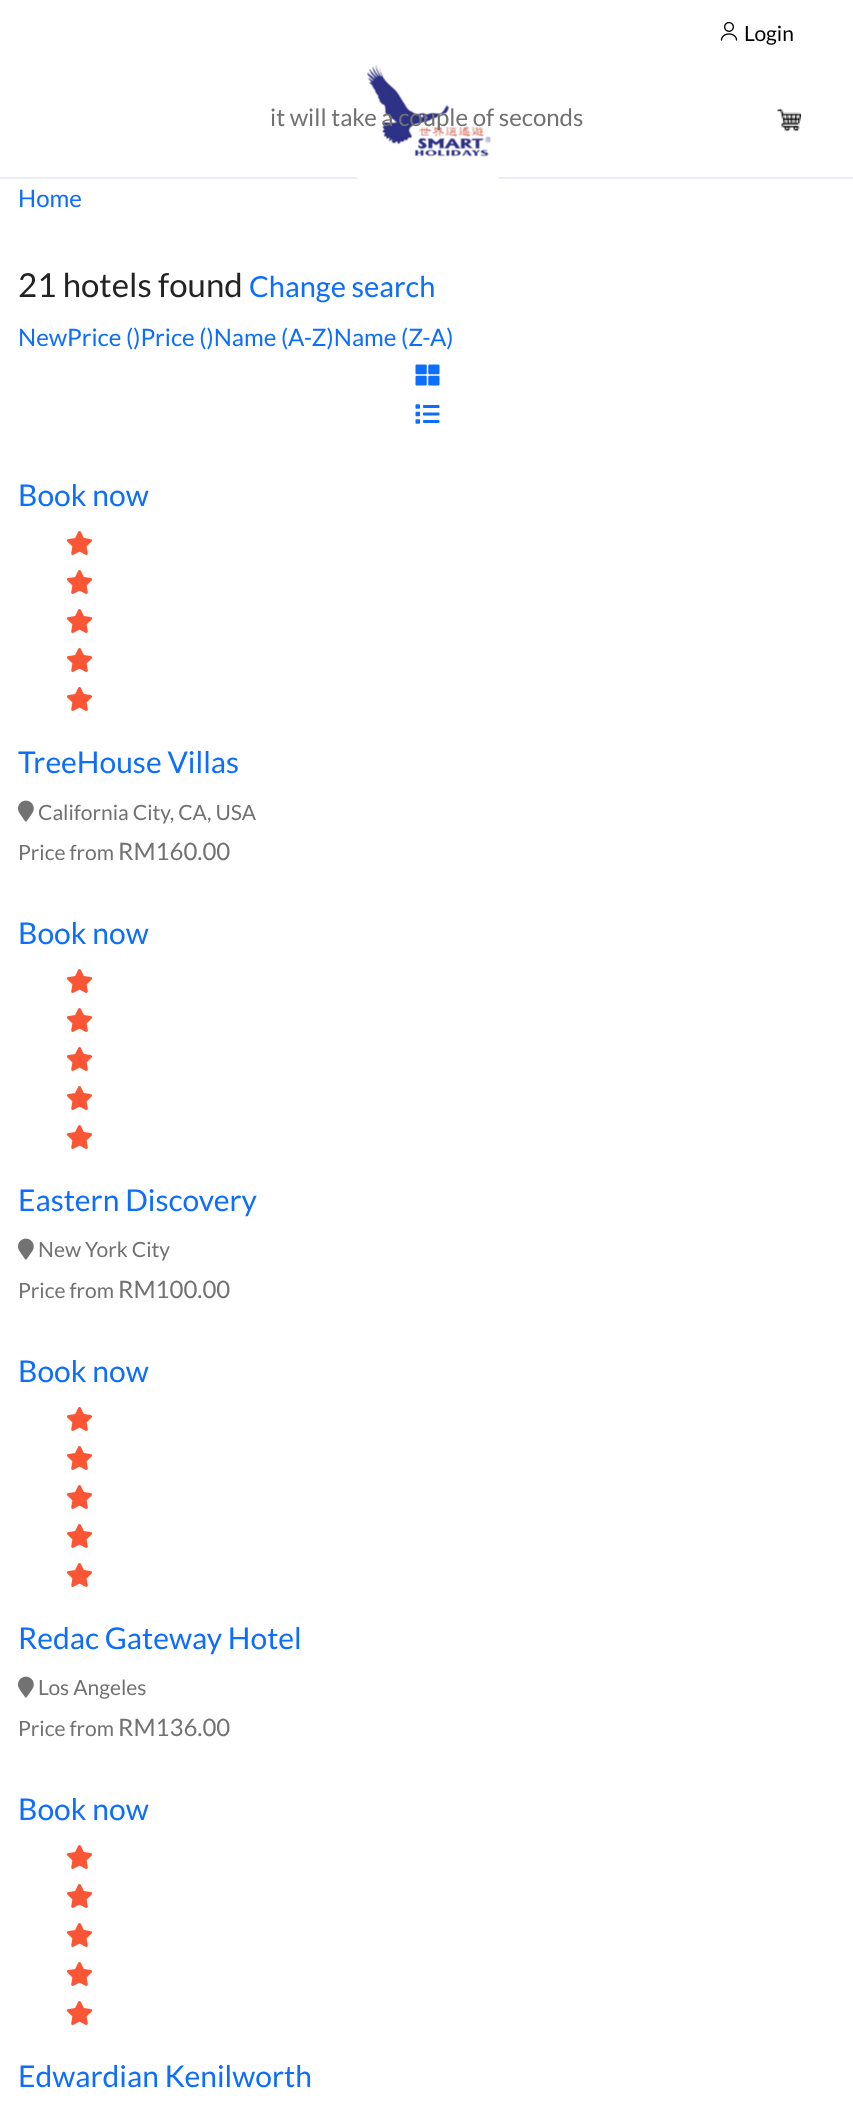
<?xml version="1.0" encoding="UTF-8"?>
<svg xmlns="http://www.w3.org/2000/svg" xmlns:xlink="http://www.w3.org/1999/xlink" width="853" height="2107">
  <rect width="100%" height="100%" fill="#ffffff" />
  <image x="720" y="21" width="18" height="20" xlink:href="image1.png" />
  <rect y="177" width="853" height="2" fill="#eaeef3" />
  <image x="356" y="65" width="143" height="114" xlink:href="image2.png" />
  <image x="777" y="108" width="24" height="24" xlink:href="image3.png" />
  <image x="415" y="364" width="25" height="22" xlink:href="image4.png" />
  <image x="415" y="404" width="25" height="20" xlink:href="image5.png" />
  <image x="67" y="531" width="25" height="24" xlink:href="image6.png" />
  <image x="67" y="570" width="25" height="24" xlink:href="image6.png" />
  <image x="67" y="609" width="25" height="24" xlink:href="image6.png" />
  <image x="67" y="648" width="25" height="24" xlink:href="image6.png" />
  <image x="67" y="687" width="25" height="24" xlink:href="image6.png" />
  <image x="18" y="800" width="16" height="22" xlink:href="image7.png" />
  <image x="67" y="969" width="25" height="24" xlink:href="image6.png" />
  <image x="67" y="1008" width="25" height="24" xlink:href="image6.png" />
  <image x="67" y="1047" width="25" height="24" xlink:href="image6.png" />
  <image x="67" y="1086" width="25" height="24" xlink:href="image6.png" />
  <image x="67" y="1125" width="25" height="24" xlink:href="image6.png" />
  <image x="18" y="1238" width="16" height="22" xlink:href="image7.png" />
  <image x="67" y="1407" width="25" height="24" xlink:href="image6.png" />
  <image x="67" y="1446" width="25" height="24" xlink:href="image6.png" />
  <image x="67" y="1485" width="25" height="24" xlink:href="image6.png" />
  <image x="67" y="1524" width="25" height="24" xlink:href="image6.png" />
  <image x="67" y="1563" width="25" height="24" xlink:href="image6.png" />
  <image x="18" y="1676" width="16" height="22" xlink:href="image7.png" />
  <image x="67" y="1845" width="25" height="24" xlink:href="image6.png" />
  <image x="67" y="1884" width="25" height="24" xlink:href="image6.png" />
  <image x="67" y="1923" width="25" height="24" xlink:href="image6.png" />
  <image x="67" y="1962" width="25" height="24" xlink:href="image6.png" />
  <image x="67" y="2001" width="25" height="24" xlink:href="image6.png" />
  <text x="744" y="41" style="font-family: Lato; font-size: 21px; fill: #000000">Login</text>
  <text x="270" y="126" style="font-family: Lato; font-size: 24px; fill: #727272">it will take a couple of seconds</text>
  <text x="18" y="207" style="font-family: Lato; font-size: 24px; fill: #0d6efd">Home</text>
  <text x="18" y="297" style="font-family: Lato; font-size: 33px; fill: #232323">21 hotels found</text>
  <text x="249" y="297" style="font-family: Lato; font-size: 29px; fill: #0d6efd">Change search</text>
  <text x="18" y="346" style="font-family: Lato; font-size: 24px; fill: #0d6efd">NewPrice ()Price ()Name (A-Z)Name (Z-A)</text>
  <text x="18" y="506" style="font-family: Lato; font-size: 30px; fill: #0d6efd">Book now</text>
  <text x="18" y="773" style="font-family: Lato; font-size: 30px; fill: #0d6efd">TreeHouse Villas</text>
  <text x="38" y="820" style="font-family: Lato; font-size: 21px; fill: #727272">California City, CA, USA</text>
  <text x="18" y="860" style="font-family: Lato; font-size: 21px; fill: #727272">Price from</text>
  <text x="118" y="860" style="font-family: Lato; font-size: 24px; fill: #727272">RM160.00</text>
  <text x="18" y="944" style="font-family: Lato; font-size: 30px; fill: #0d6efd">Book now</text>
  <text x="18" y="1211" style="font-family: Lato; font-size: 30px; fill: #0d6efd">Eastern Discovery</text>
  <text x="38" y="1257" style="font-family: Lato; font-size: 21px; fill: #727272">New York City</text>
  <text x="18" y="1298" style="font-family: Lato; font-size: 21px; fill: #727272">Price from</text>
  <text x="118" y="1298" style="font-family: Lato; font-size: 24px; fill: #727272">RM100.00</text>
  <text x="18" y="1382" style="font-family: Lato; font-size: 30px; fill: #0d6efd">Book now</text>
  <text x="18" y="1649" style="font-family: Lato; font-size: 30px; fill: #0d6efd">Redac Gateway Hotel</text>
  <text x="38" y="1695" style="font-family: Lato; font-size: 21px; fill: #727272">Los Angeles</text>
  <text x="18" y="1736" style="font-family: Lato; font-size: 21px; fill: #727272">Price from</text>
  <text x="118" y="1736" style="font-family: Lato; font-size: 24px; fill: #727272">RM136.00</text>
  <text x="18" y="1820" style="font-family: Lato; font-size: 30px; fill: #0d6efd">Book now</text>
  <text x="18" y="2087" style="font-family: Lato; font-size: 30px; fill: #0d6efd">Edwardian Kenilworth</text>
</svg>
